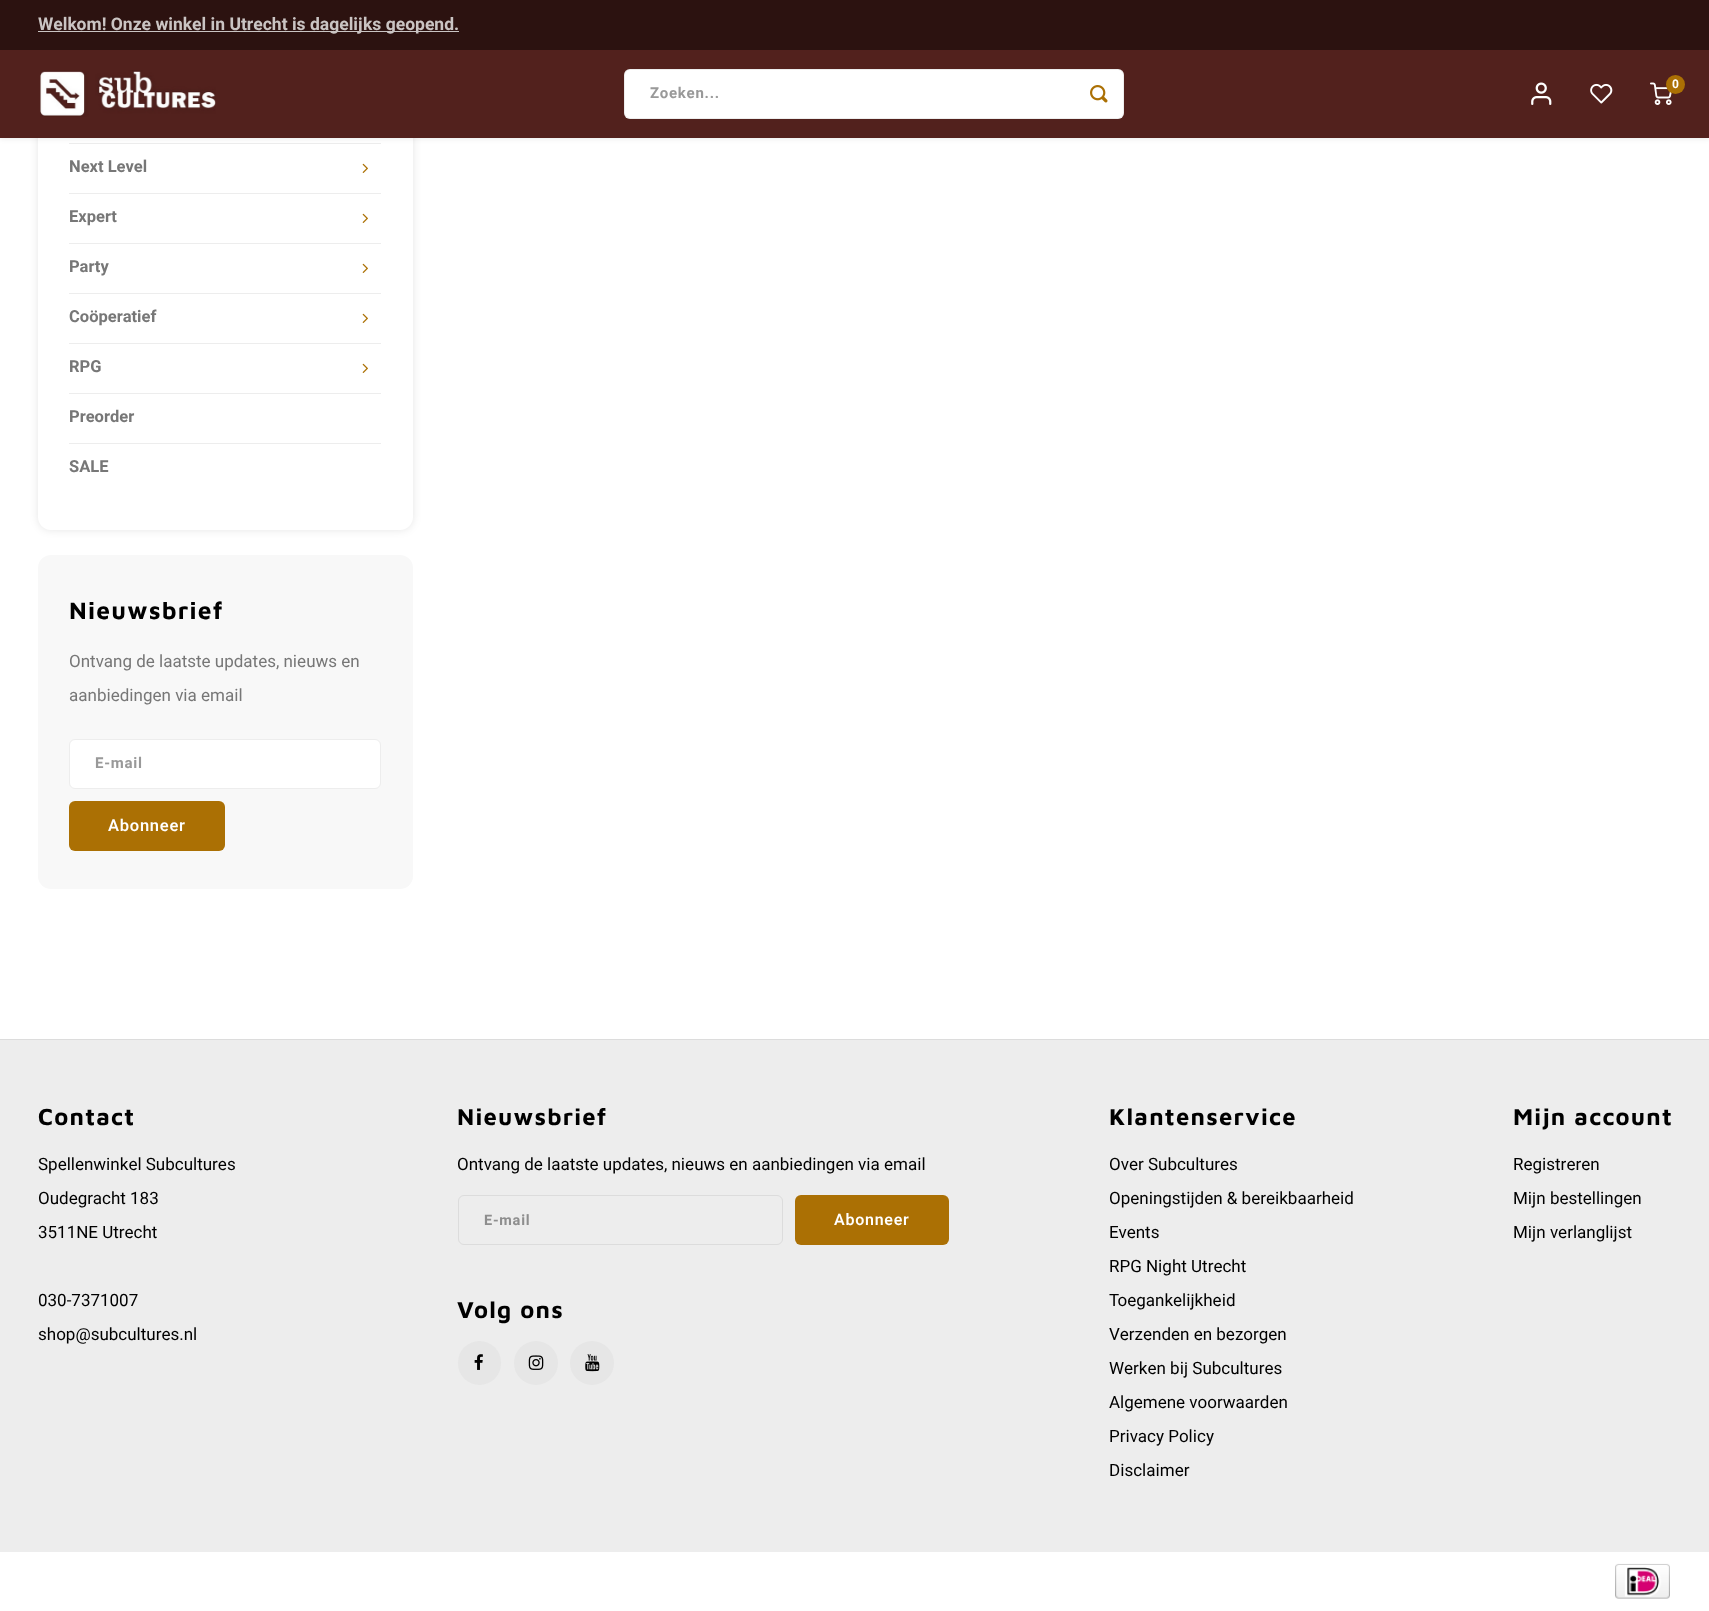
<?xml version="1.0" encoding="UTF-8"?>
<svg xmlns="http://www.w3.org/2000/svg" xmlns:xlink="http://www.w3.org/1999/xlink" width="1709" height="1611">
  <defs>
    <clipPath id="clip1"><path d="M 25 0 h 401 v 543 h -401 z m 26 -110 h 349 c 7 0 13 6 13 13 v 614 c 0 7 -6 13 -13 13 h -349 c -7 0 -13 -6 -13 -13 v -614 c 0 -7 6 -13 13 -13 z" clip-rule="evenodd" /></clipPath>
  </defs>
  <rect width="100%" height="100%" fill="#ffffff" />
  <g clip-path="url(#clip1)">
    <rect x="38" y="-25" width="375" height="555" rx="13" fill="#000000" fill-opacity="0.1" filter="blur(4px)" />
  </g>
  <rect x="69" y="143" width="312" height="1" fill="#ededed" />
  <rect y="1" width="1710" height="138" fill="#000000" fill-opacity="0.08" filter="blur(2.5px)" />
  <rect y="50" width="1709" height="88" fill="#52211d" />
  <rect width="1709" height="50" fill="#2c1210" />
  <rect x="38" y="31" width="421" height="1" fill="#cac4c3" />
  <image x="40" y="70" width="176" height="47" xlink:href="image1.png" />
  <image x="1531" y="82" width="21" height="23" xlink:href="image2.png" />
  <image x="1590" y="83" width="23" height="21" xlink:href="image3.png" />
  <image x="1650" y="82" width="22" height="23" xlink:href="image4.png" />
  <circle cx="1675.5" cy="84.5" r="9.5" fill="#ab7004" />
  <rect x="624" y="69" width="500" height="50" rx="6" fill="#ffffff" />
  <rect x="624.5" y="69.5" width="499" height="49" rx="5.5" fill="none" stroke="#000000" stroke-opacity="0.07" />
  <image x="1090" y="85" width="18" height="18" xlink:href="image5.png" />
  <image x="362" y="163" width="6" height="10" xlink:href="image6.png" />
  <rect x="69" y="193" width="312" height="1" fill="#ededed" />
  <image x="362" y="213" width="6" height="10" xlink:href="image6.png" />
  <rect x="69" y="243" width="312" height="1" fill="#ededed" />
  <image x="362" y="263" width="6" height="10" xlink:href="image6.png" />
  <rect x="69" y="293" width="312" height="1" fill="#ededed" />
  <image x="362" y="313" width="6" height="10" xlink:href="image6.png" />
  <rect x="69" y="343" width="312" height="1" fill="#ededed" />
  <image x="362" y="363" width="6" height="10" xlink:href="image6.png" />
  <rect x="69" y="393" width="312" height="1" fill="#ededed" />
  <rect x="69" y="443" width="312" height="1" fill="#ededed" />
  <rect x="38" y="555" width="375" height="334" rx="13" fill="#f8f8f8" />
  <rect x="69.5" y="739.5" width="311" height="49" rx="5.5" fill="#ffffff" stroke="#ededed" />
  <rect x="69" y="801" width="156" height="50" rx="6" fill="#ab7004" />
  <rect y="1040" width="1709" height="512" fill="#ededed" />
  <rect y="1039" width="1709" height="1" fill="#dcdcdc" />
  <rect x="458.5" y="1195.5" width="324" height="49" rx="5.5" fill="none" stroke="#dcdcdc" />
  <rect x="795" y="1195" width="154" height="50" rx="6" fill="#ab7004" />
  <rect x="458" y="1341" width="43" height="44" rx="21.5" fill="#e6e6e6" />
  <image x="474" y="1354" width="9" height="16" xlink:href="image7.png" />
  <circle cx="536" cy="1363" r="22" fill="#e6e6e6" />
  <image x="528" y="1355" width="16" height="15" xlink:href="image8.png" />
  <circle cx="592" cy="1363" r="22" fill="#e6e6e6" />
  <image x="585" y="1354" width="15" height="18" xlink:href="image9.png" />
  <image x="1615" y="1563" width="55" height="36" xlink:href="image10.png" />
  <text x="38" y="30" style="font-family: Heebo; font-size: 17.5px; font-weight: bold; fill: #cac4c3">Welkom! Onze winkel in Utrecht is dagelijks geopend.</text>
  <text x="1672" y="88" style="font-family: Heebo; font-size: 12px; font-weight: bold; fill: #ffffff">0</text>
  <text x="650" y="98" style="font-family: Heebo; font-size: 15px; font-weight: bold; letter-spacing: 0.75px; fill: #999999">Zoeken...</text>
  <text x="69" y="172" style="font-family: Heebo; font-size: 16.5px; font-weight: bold; fill: #777777">Next Level</text>
  <text x="69" y="222" style="font-family: Heebo; font-size: 16.5px; font-weight: bold; fill: #777777">Expert</text>
  <text x="69" y="272" style="font-family: Heebo; font-size: 16.5px; font-weight: bold; fill: #777777">Party</text>
  <text x="69" y="322" style="font-family: Heebo; font-size: 16.5px; font-weight: bold; fill: #777777">Coöperatief</text>
  <text x="69" y="372" style="font-family: Heebo; font-size: 16.5px; font-weight: bold; fill: #777777">RPG</text>
  <text x="69" y="422" style="font-family: Heebo; font-size: 16.5px; font-weight: bold; fill: #777777">Preorder</text>
  <text x="69" y="472" style="font-family: Heebo; font-size: 16.5px; font-weight: bold; fill: #777777">SALE</text>
  <text x="69" y="619" style="font-family: Maven Pro; font-size: 24.5px; font-weight: bold; letter-spacing: 1.25px; fill: #000000">Nieuwsbrief</text>
  <text x="69" y="667" style="font-family: Heebo; font-size: 17px; fill: #777777">Ontvang de laatste updates, nieuws en</text>
  <text x="69" y="701" style="font-family: Heebo; font-size: 17px; fill: #777777">aanbiedingen via email</text>
  <text x="95" y="768" style="font-family: Heebo; font-size: 15px; font-weight: bold; letter-spacing: 0.75px; fill: #999999">E-mail</text>
  <text x="108" y="831" style="font-family: Heebo; font-size: 16.5px; font-weight: 600; letter-spacing: 0.75px; fill: #ffffff">Abonneer</text>
  <text x="38" y="1125" style="font-family: Maven Pro; font-size: 23.75px; font-weight: bold; letter-spacing: 1.25px; fill: #000000">Contact</text>
  <text x="38" y="1170" style="font-family: Heebo; font-size: 17px; fill: #000000">Spellenwinkel Subcultures</text>
  <text x="38" y="1204" style="font-family: Heebo; font-size: 17px; fill: #000000">Oudegracht 183</text>
  <text x="38" y="1238" style="font-family: Heebo; font-size: 17px; fill: #000000">3511NE Utrecht</text>
  <text x="38" y="1306" style="font-family: Heebo; font-size: 17px; fill: #000000">030-7371007</text>
  <text x="38" y="1340" style="font-family: Heebo; font-size: 17px; fill: #000000">shop@subcultures.nl</text>
  <text x="457" y="1125" style="font-family: Maven Pro; font-size: 23.75px; font-weight: bold; letter-spacing: 1.25px; fill: #000000">Nieuwsbrief</text>
  <text x="457" y="1170" style="font-family: Heebo; font-size: 17px; fill: #000000">Ontvang de laatste updates, nieuws en aanbiedingen via email</text>
  <text x="484" y="1225" style="font-family: Heebo; font-size: 14.5px; font-weight: bold; letter-spacing: 0.75px; fill: #8e8e8e">E-mail</text>
  <text x="834" y="1225" style="font-family: Heebo; font-size: 16px; font-weight: 600; letter-spacing: 0.75px; fill: #ffffff">Abonneer</text>
  <text x="457" y="1318" style="font-family: Maven Pro; font-size: 23.75px; font-weight: bold; letter-spacing: 1.25px; fill: #000000">Volg ons</text>
  <text x="1109" y="1125" style="font-family: Maven Pro; font-size: 23.75px; font-weight: bold; letter-spacing: 1.25px; fill: #000000">Klantenservice</text>
  <text x="1109" y="1170" style="font-family: Heebo; font-size: 17px; fill: #000000">Over Subcultures</text>
  <text x="1109" y="1204" style="font-family: Heebo; font-size: 17px; fill: #000000">Openingstijden &amp; bereikbaarheid</text>
  <text x="1109" y="1238" style="font-family: Heebo; font-size: 17px; fill: #000000">Events</text>
  <text x="1109" y="1272" style="font-family: Heebo; font-size: 17px; fill: #000000">RPG Night Utrecht</text>
  <text x="1109" y="1306" style="font-family: Heebo; font-size: 17px; fill: #000000">Toegankelijkheid</text>
  <text x="1109" y="1340" style="font-family: Heebo; font-size: 17px; fill: #000000">Verzenden en bezorgen</text>
  <text x="1109" y="1374" style="font-family: Heebo; font-size: 17px; fill: #000000">Werken bij Subcultures</text>
  <text x="1109" y="1408" style="font-family: Heebo; font-size: 17px; fill: #000000">Algemene voorwaarden</text>
  <text x="1109" y="1442" style="font-family: Heebo; font-size: 17px; fill: #000000">Privacy Policy</text>
  <text x="1109" y="1476" style="font-family: Heebo; font-size: 17px; fill: #000000">Disclaimer</text>
  <text x="1513" y="1125" style="font-family: Maven Pro; font-size: 23.75px; font-weight: bold; letter-spacing: 1.25px; fill: #000000">Mijn account</text>
  <text x="1513" y="1170" style="font-family: Heebo; font-size: 17px; fill: #000000">Registreren</text>
  <text x="1513" y="1204" style="font-family: Heebo; font-size: 17px; fill: #000000">Mijn bestellingen</text>
  <text x="1513" y="1238" style="font-family: Heebo; font-size: 17px; fill: #000000">Mijn verlanglijst</text>
</svg>
